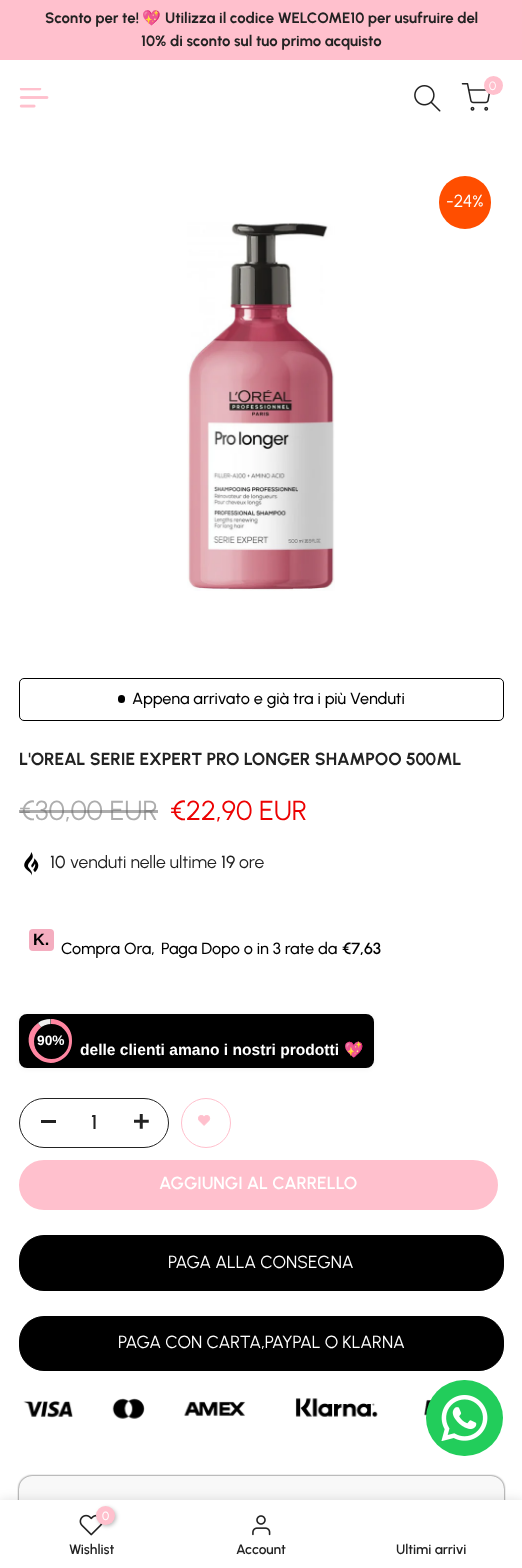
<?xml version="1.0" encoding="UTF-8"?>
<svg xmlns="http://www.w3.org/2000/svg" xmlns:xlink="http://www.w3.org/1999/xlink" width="522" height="1568">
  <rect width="100%" height="100%" fill="#ffffff" />
  <rect width="522" height="60" fill="#ffc0cd" />
  <image x="414" y="85" width="27" height="27" xlink:href="image1.png" />
  <image x="461" y="83" width="29" height="28" xlink:href="image2.png" />
  <circle cx="493.5" cy="85.5" r="9.5" fill="#ffc0cd" />
  <image x="19" y="88" width="30" height="20" xlink:href="image3.png" />
  <rect x="439" y="176" width="52" height="53" rx="26" fill="#ff4e00" />
  <image x="187" y="222" width="148" height="369" xlink:href="image4.png" />
  <rect x="19.5" y="678.5" width="484" height="42" rx="4.5" fill="none" stroke="#000000" />
  <rect x="118" y="695" width="7" height="8" rx="3.5" fill="#000000" />
  <image x="24" y="852" width="15" height="24" xlink:href="image5.png" />
  <rect x="29" y="929" width="25" height="22" rx="4" fill="#f4adbf" />
  <rect x="19" y="1015" width="355" height="54" rx="8" fill="#000000" fill-opacity="0.05" filter="blur(2.5px)" />
  <rect x="19" y="1014" width="355" height="54" rx="8" fill="#000000" />
  <path d="M 51 1041 v -22 c 12 0 22 10 21 22 c 0 7 -3 13 -8 17 c -23 18 -50 -18 -26 -35 z" fill="#ff86a1" />
  <path d="M 50.5 1040.5 l -12.5 -17.5 c 3.5 -3 8 -4 12.5 -4 z" fill="#eeeeee" />
  <circle cx="51.5" cy="1041.5" r="17.5" fill="#000000" />
  <rect x="19.5" y="1098.5" width="149" height="49" rx="24.5" fill="none" stroke="#222222" />
  <rect x="41" y="1120" width="15" height="3" fill="#222222" />
  <image x="134" y="1114" width="15" height="15" xlink:href="image6.png" />
  <circle cx="206" cy="1123" r="24.5" fill="none" stroke="#ffc0cd" />
  <image x="198" y="1115" width="13" height="11" xlink:href="image7.png" />
  <rect x="20.5" y="1161.5" width="476" height="47" rx="23.5" fill="#ffc0cd" stroke="#ffc0cd" stroke-width="3" />
  <rect x="19.5" y="1235.5" width="484" height="55" rx="24.5" fill="#000000" stroke="#000000" />
  <rect x="19.5" y="1316.5" width="484" height="54" rx="24.5" fill="#000000" stroke="#000000" />
  <image x="23" y="1398" width="408" height="21" xlink:href="image8.png" />
  <rect x="19" y="1476" width="485" height="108" rx="13" fill="#000000" fill-opacity="0.8" filter="blur(1px)" />
  <rect x="19" y="1476" width="485" height="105" rx="13" fill="#f8f8f8" />
  <rect x="426" y="1380" width="77" height="76" rx="38" fill="#22cd5b" />
  <image x="441" y="1395" width="47" height="46" xlink:href="image9.png" />
  <rect y="1500" width="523" height="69" fill="#000000" fill-opacity="0.12" filter="blur(5.5px)" />
  <rect y="1500" width="522" height="68" fill="#ffffff" />
  <image x="79" y="1514" width="24" height="22" xlink:href="image10.png" />
  <rect x="98" y="1508" width="18" height="18" rx="9" fill="#000000" fill-opacity="0.3" filter="blur(2px)" />
  <circle cx="105.5" cy="1515.5" r="9.5" fill="#ffc0cd" />
  <image x="252" y="1515" width="19" height="21" xlink:href="image11.png" />
  <text x="45" y="23" style="font-family: Urbanist; font-size: 15px; font-weight: bold; fill: #222222">Sconto per te!</text>
  <text x="142" y="23" style="font-family: Noto Color Emoji; font-size: 15px; font-weight: bold; fill: #222222">💖</text>
  <text x="165" y="23" style="font-family: Urbanist; font-size: 15px; font-weight: bold; fill: #222222">Utilizza il codice WELCOME10 per usufruire del</text>
  <text x="141" y="46" style="font-family: Urbanist; font-size: 15px; font-weight: bold; fill: #222222">10% di sconto sul tuo primo acquisto</text>
  <text x="489" y="90" style="font-family: Urbanist; font-size: 12px; fill: #ffffff">0</text>
  <text x="446" y="207" style="font-family: Urbanist; font-size: 17.5px; fill: #ffffff">-24%</text>
  <text x="132" y="704" style="font-family: Urbanist; font-size: 16.25px; font-weight: 500; fill: #000000">Appena arrivato e già tra i più Venduti</text>
  <text x="19" y="765" style="font-family: Urbanist; font-size: 17.5px; font-weight: bold; fill: #222222">L'OREAL SERIE EXPERT PRO LONGER SHAMPOO 500ML</text>
  <text x="19" y="820" style="font-family: Urbanist; font-size: 27.5px; fill: #adadad">€30,00 EUR</text>
  <rect x="19" y="810" width="139" height="3" fill="#696969" fill-opacity="0.55" />
  <text x="170" y="820" style="font-family: Urbanist; font-size: 27.5px; fill: #ec0101">€22,90 EUR</text>
  <text x="50" y="868" style="font-family: Urbanist; font-size: 17.5px; font-weight: 500; fill: #222222">10</text>
  <text x="70" y="868" style="font-family: Urbanist; font-size: 17.5px; fill: #222222">venduti nelle ultime</text>
  <text x="221" y="868" style="font-family: Urbanist; font-size: 17.5px; font-weight: 500; fill: #222222">19</text>
  <text x="239" y="868" style="font-family: Urbanist; font-size: 17.5px; fill: #222222">ore</text>
  <text x="33" y="945" style="font-family: Liberation Sans; font-size: 16.25px; font-weight: bold; fill: #000000">K.</text>
  <text x="61" y="954" style="font-family: Urbanist; font-size: 16.25px; font-weight: 500; fill: #000000">Compra Ora,</text>
  <text x="161" y="954" style="font-family: Urbanist; font-size: 16.25px; font-weight: 500; fill: #000000">Paga Dopo o in 3 rate da</text>
  <text x="342" y="954" style="font-family: Urbanist; font-size: 16.25px; font-weight: 600; fill: #000000">€7,63</text>
  <text x="37" y="1045" style="font-family: Liberation Sans; font-size: 13.75px; font-weight: bold; fill: #ffffff">90%</text>
  <text x="80" y="1055" style="font-family: Liberation Sans; font-size: 15.6px; font-weight: bold; fill: #ffffff">delle clienti amano i nostri prodotti</text>
  <text x="344" y="1055" style="font-family: Noto Color Emoji; font-size: 15.6px; font-weight: bold; fill: #ffffff">💖</text>
  <text x="91" y="1129" style="font-family: Urbanist; font-size: 20px; font-weight: 600; fill: #222222">1</text>
  <text x="159" y="1189" style="font-family: Urbanist; font-size: 17.5px; font-weight: 600; fill: #ffffff">AGGIUNGI AL CARRELLO</text>
  <text x="168" y="1268" style="font-family: Urbanist; font-size: 17.5px; fill: #ffffff">PAGA ALLA CONSEGNA</text>
  <text x="118" y="1348" style="font-family: Urbanist; font-size: 17.5px; fill: #ffffff">PAGA CON CARTA,PAYPAL O KLARNA</text>
  <text x="102" y="1520" style="font-family: Urbanist; font-size: 12px; font-weight: 500; fill: #ffffff">0</text>
  <text x="69" y="1554" style="font-family: Urbanist; font-size: 13.75px; font-weight: 600; fill: #222222">Wishlist</text>
  <text x="236" y="1554" style="font-family: Urbanist; font-size: 13.75px; font-weight: 600; fill: #222222">Account</text>
  <text x="396" y="1554" style="font-family: Urbanist; font-size: 13.75px; font-weight: 600; fill: #222222">Ultimi arrivi</text>
</svg>
